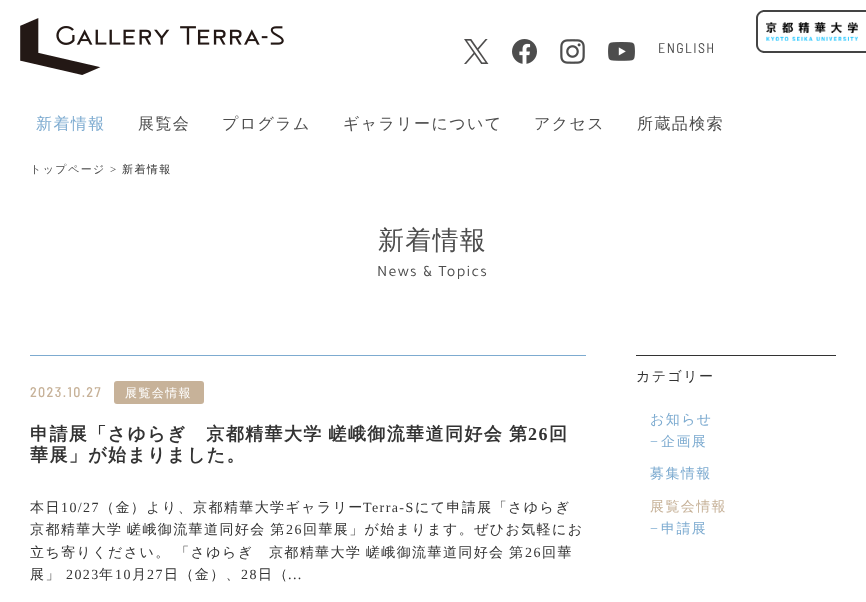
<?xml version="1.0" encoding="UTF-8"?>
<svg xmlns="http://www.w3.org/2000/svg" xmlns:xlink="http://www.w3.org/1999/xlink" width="866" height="602">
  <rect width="100%" height="100%" fill="#ffffff" />
  <path d="M 764 10 h 102 v 43 h -102 c -4 0 -8 -4 -8 -8 v -27 c 0 -4 4 -8 8 -8 z m 0 2 h 102 v 39 h -102 c -3 0 -6 -3 -6 -6 v -27 c 0 -3 3 -6 6 -6 z" fill="#444444" fill-rule="evenodd" />
  <image x="766" y="22" width="92" height="19" xlink:href="image1.png" />
  <image x="20" y="18" width="264" height="57" xlink:href="image2.png" />
  <image x="464" y="39" width="25" height="25" xlink:href="image3.png" />
  <image x="512" y="39" width="25" height="25" xlink:href="image4.png" />
  <image x="560" y="39" width="25" height="25" xlink:href="image5.png" />
  <image x="608" y="42" width="27" height="19" xlink:href="image6.png" />
  <rect x="30" y="355" width="556" height="1" fill="#7dabd0" />
  <rect x="114" y="381" width="90" height="23" rx="3" fill="#c7b299" />
  <rect x="636" y="355" width="200" height="1" fill="#333333" />
  <text x="658" y="53" style="font-family: Barlow Semi Condensed; font-size: 14px; letter-spacing: 1.4px; fill: #4d4d4d">ENGLISH</text>
  <text x="36" y="129" style="font-family: WenQuanYi Zen Hei; font-size: 16px; font-weight: 500; letter-spacing: 1.4px; fill: #7dabd0">新着情報</text>
  <text x="138" y="129" style="font-family: WenQuanYi Zen Hei; font-size: 16px; font-weight: 500; letter-spacing: 1.4px; fill: #4d4d4d">展覧会</text>
  <text x="222" y="129" style="font-family: WenQuanYi Zen Hei; font-size: 16px; font-weight: 500; letter-spacing: 1.4px; fill: #4d4d4d">プログラム</text>
  <text x="343" y="129" style="font-family: WenQuanYi Zen Hei; font-size: 16px; font-weight: 500; letter-spacing: 1.4px; fill: #4d4d4d">ギャラリーについて</text>
  <text x="534" y="129" style="font-family: WenQuanYi Zen Hei; font-size: 16px; font-weight: 500; letter-spacing: 1.4px; fill: #4d4d4d">アクセス</text>
  <text x="637" y="129" style="font-family: WenQuanYi Zen Hei; font-size: 16px; font-weight: 500; letter-spacing: 1.4px; fill: #4d4d4d">所蔵品検索</text>
  <text x="30" y="173" style="font-family: WenQuanYi Zen Hei; font-size: 11px; font-weight: 500; letter-spacing: 1.4px; fill: #4d4d4d">トップページ</text>
  <text x="110" y="173" style="font-family: Liberation Serif; font-size: 11px; letter-spacing: 1.4px; fill: #333333">&gt;</text>
  <text x="122" y="173" style="font-family: WenQuanYi Zen Hei; font-size: 11px; font-weight: 500; letter-spacing: 1.4px; fill: #333333">新着情報</text>
  <text x="378" y="249" style="font-family: WenQuanYi Zen Hei; font-size: 26px; font-weight: 500; letter-spacing: 1.25px; fill: #4d4d4d">新着情報</text>
  <text x="377" y="276" style="font-family: Tajawal; font-size: 16px; letter-spacing: 1.25px; fill: #4d4d4d">News &amp; Topics</text>
  <text x="30" y="397" style="font-family: Barlow Semi Condensed; font-size: 14px; font-weight: 500; letter-spacing: 1.4px; fill: #c7b299">2023.10.27</text>
  <text x="125" y="397" style="font-family: WenQuanYi Zen Hei; font-size: 12px; font-weight: 500; letter-spacing: 1.4px; fill: #ffffff">展覧会情報</text>
  <text x="30" y="440" word-spacing="-1" style="font-family: WenQuanYi Zen Hei; font-size: 18px; font-weight: bold; letter-spacing: 1.4px; fill: #333333">申請展「さゆらぎ　京都精華大学 嵯峨御流華道同好会 第</text>
  <text x="528" y="440" style="font-family: Liberation Serif; font-size: 18px; font-weight: bold; letter-spacing: 1.4px; fill: #333333">26</text>
  <text x="549" y="440" style="font-family: WenQuanYi Zen Hei; font-size: 18px; font-weight: bold; letter-spacing: 1.4px; fill: #333333">回</text>
  <text x="30" y="461" style="font-family: WenQuanYi Zen Hei; font-size: 18px; font-weight: bold; letter-spacing: 1.4px; fill: #333333">華展」が始まりました。</text>
  <text x="30" y="512" style="font-family: WenQuanYi Zen Hei; font-size: 14px; font-weight: 500; letter-spacing: 1.4px; fill: #333333">本日</text>
  <text x="61" y="512" style="font-family: Liberation Serif; font-size: 14px; letter-spacing: 1.4px; fill: #333333">10/27</text>
  <text x="100" y="512" style="font-family: WenQuanYi Zen Hei; font-size: 14px; font-weight: 500; letter-spacing: 1.4px; fill: #333333">（金）より、京都精華大学ギャラリー</text>
  <text x="363" y="512" style="font-family: Liberation Serif; font-size: 14px; letter-spacing: 1.4px; fill: #333333">Terra-S</text>
  <text x="415" y="512" style="font-family: WenQuanYi Zen Hei; font-size: 14px; font-weight: 500; letter-spacing: 1.4px; fill: #333333">にて申請展「さゆらぎ</text>
  <text x="30" y="534" word-spacing="-1" style="font-family: WenQuanYi Zen Hei; font-size: 14px; font-weight: 500; letter-spacing: 1.4px; fill: #333333">京都精華大学 嵯峨御流華道同好会 第</text>
  <text x="286" y="534" style="font-family: Liberation Serif; font-size: 14px; letter-spacing: 1.4px; fill: #333333">26</text>
  <text x="303" y="534" style="font-family: WenQuanYi Zen Hei; font-size: 14px; font-weight: 500; letter-spacing: 1.4px; fill: #333333">回華展」が始まります。ぜひお気軽にお</text>
  <text x="30" y="557" word-spacing="-1" style="font-family: WenQuanYi Zen Hei; font-size: 14px; font-weight: 500; letter-spacing: 1.4px; fill: #333333">立ち寄りください。 「さゆらぎ　京都精華大学 嵯峨御流華道同好会 第</text>
  <text x="525" y="557" style="font-family: Liberation Serif; font-size: 14px; letter-spacing: 1.4px; fill: #333333">26</text>
  <text x="542" y="557" style="font-family: WenQuanYi Zen Hei; font-size: 14px; font-weight: 500; letter-spacing: 1.4px; fill: #333333">回華</text>
  <text x="30" y="579" style="font-family: WenQuanYi Zen Hei; font-size: 14px; font-weight: 500; letter-spacing: 1.4px; fill: #333333">展」</text>
  <text x="66" y="579" style="font-family: Liberation Serif; font-size: 14px; letter-spacing: 1.4px; fill: #333333">2023</text>
  <text x="99" y="579" style="font-family: WenQuanYi Zen Hei; font-size: 14px; font-weight: 500; letter-spacing: 1.4px; fill: #333333">年</text>
  <text x="115" y="579" style="font-family: Liberation Serif; font-size: 14px; letter-spacing: 1.4px; fill: #333333">10</text>
  <text x="132" y="579" style="font-family: WenQuanYi Zen Hei; font-size: 14px; font-weight: 500; letter-spacing: 1.4px; fill: #333333">月</text>
  <text x="147" y="579" style="font-family: Liberation Serif; font-size: 14px; letter-spacing: 1.4px; fill: #333333">27</text>
  <text x="164" y="579" style="font-family: WenQuanYi Zen Hei; font-size: 14px; font-weight: 500; letter-spacing: 1.4px; fill: #333333">日（金）、</text>
  <text x="241" y="579" style="font-family: Liberation Serif; font-size: 14px; letter-spacing: 1.4px; fill: #333333">28</text>
  <text x="258" y="579" style="font-family: WenQuanYi Zen Hei; font-size: 14px; font-weight: 500; letter-spacing: 1.4px; fill: #333333">日（</text>
  <text x="288" y="579" style="font-family: Liberation Serif; font-size: 14px; letter-spacing: 1.4px; fill: #333333">...</text>
  <text x="636" y="381" style="font-family: WenQuanYi Zen Hei; font-size: 14px; font-weight: 500; letter-spacing: 1.4px; fill: #333333">カテゴリー</text>
  <text x="650" y="424" style="font-family: WenQuanYi Zen Hei; font-size: 14px; font-weight: 500; letter-spacing: 1.4px; fill: #7dabd0">お知らせ</text>
  <text x="650" y="446" style="font-family: Liberation Serif; font-size: 14px; letter-spacing: 1.4px; fill: #7dabd0">−</text>
  <text x="661" y="446" style="font-family: WenQuanYi Zen Hei; font-size: 14px; font-weight: 500; letter-spacing: 1.4px; fill: #7dabd0">企画展</text>
  <text x="650" y="478" style="font-family: WenQuanYi Zen Hei; font-size: 14px; font-weight: 500; letter-spacing: 1.4px; fill: #7dabd0">募集情報</text>
  <text x="650" y="511" style="font-family: WenQuanYi Zen Hei; font-size: 14px; font-weight: 500; letter-spacing: 1.4px; fill: #c7b299">展覧会情報</text>
  <text x="650" y="533" style="font-family: Liberation Serif; font-size: 14px; letter-spacing: 1.4px; fill: #7dabd0">−</text>
  <text x="661" y="533" style="font-family: WenQuanYi Zen Hei; font-size: 14px; font-weight: 500; letter-spacing: 1.4px; fill: #7dabd0">申請展</text>
</svg>
